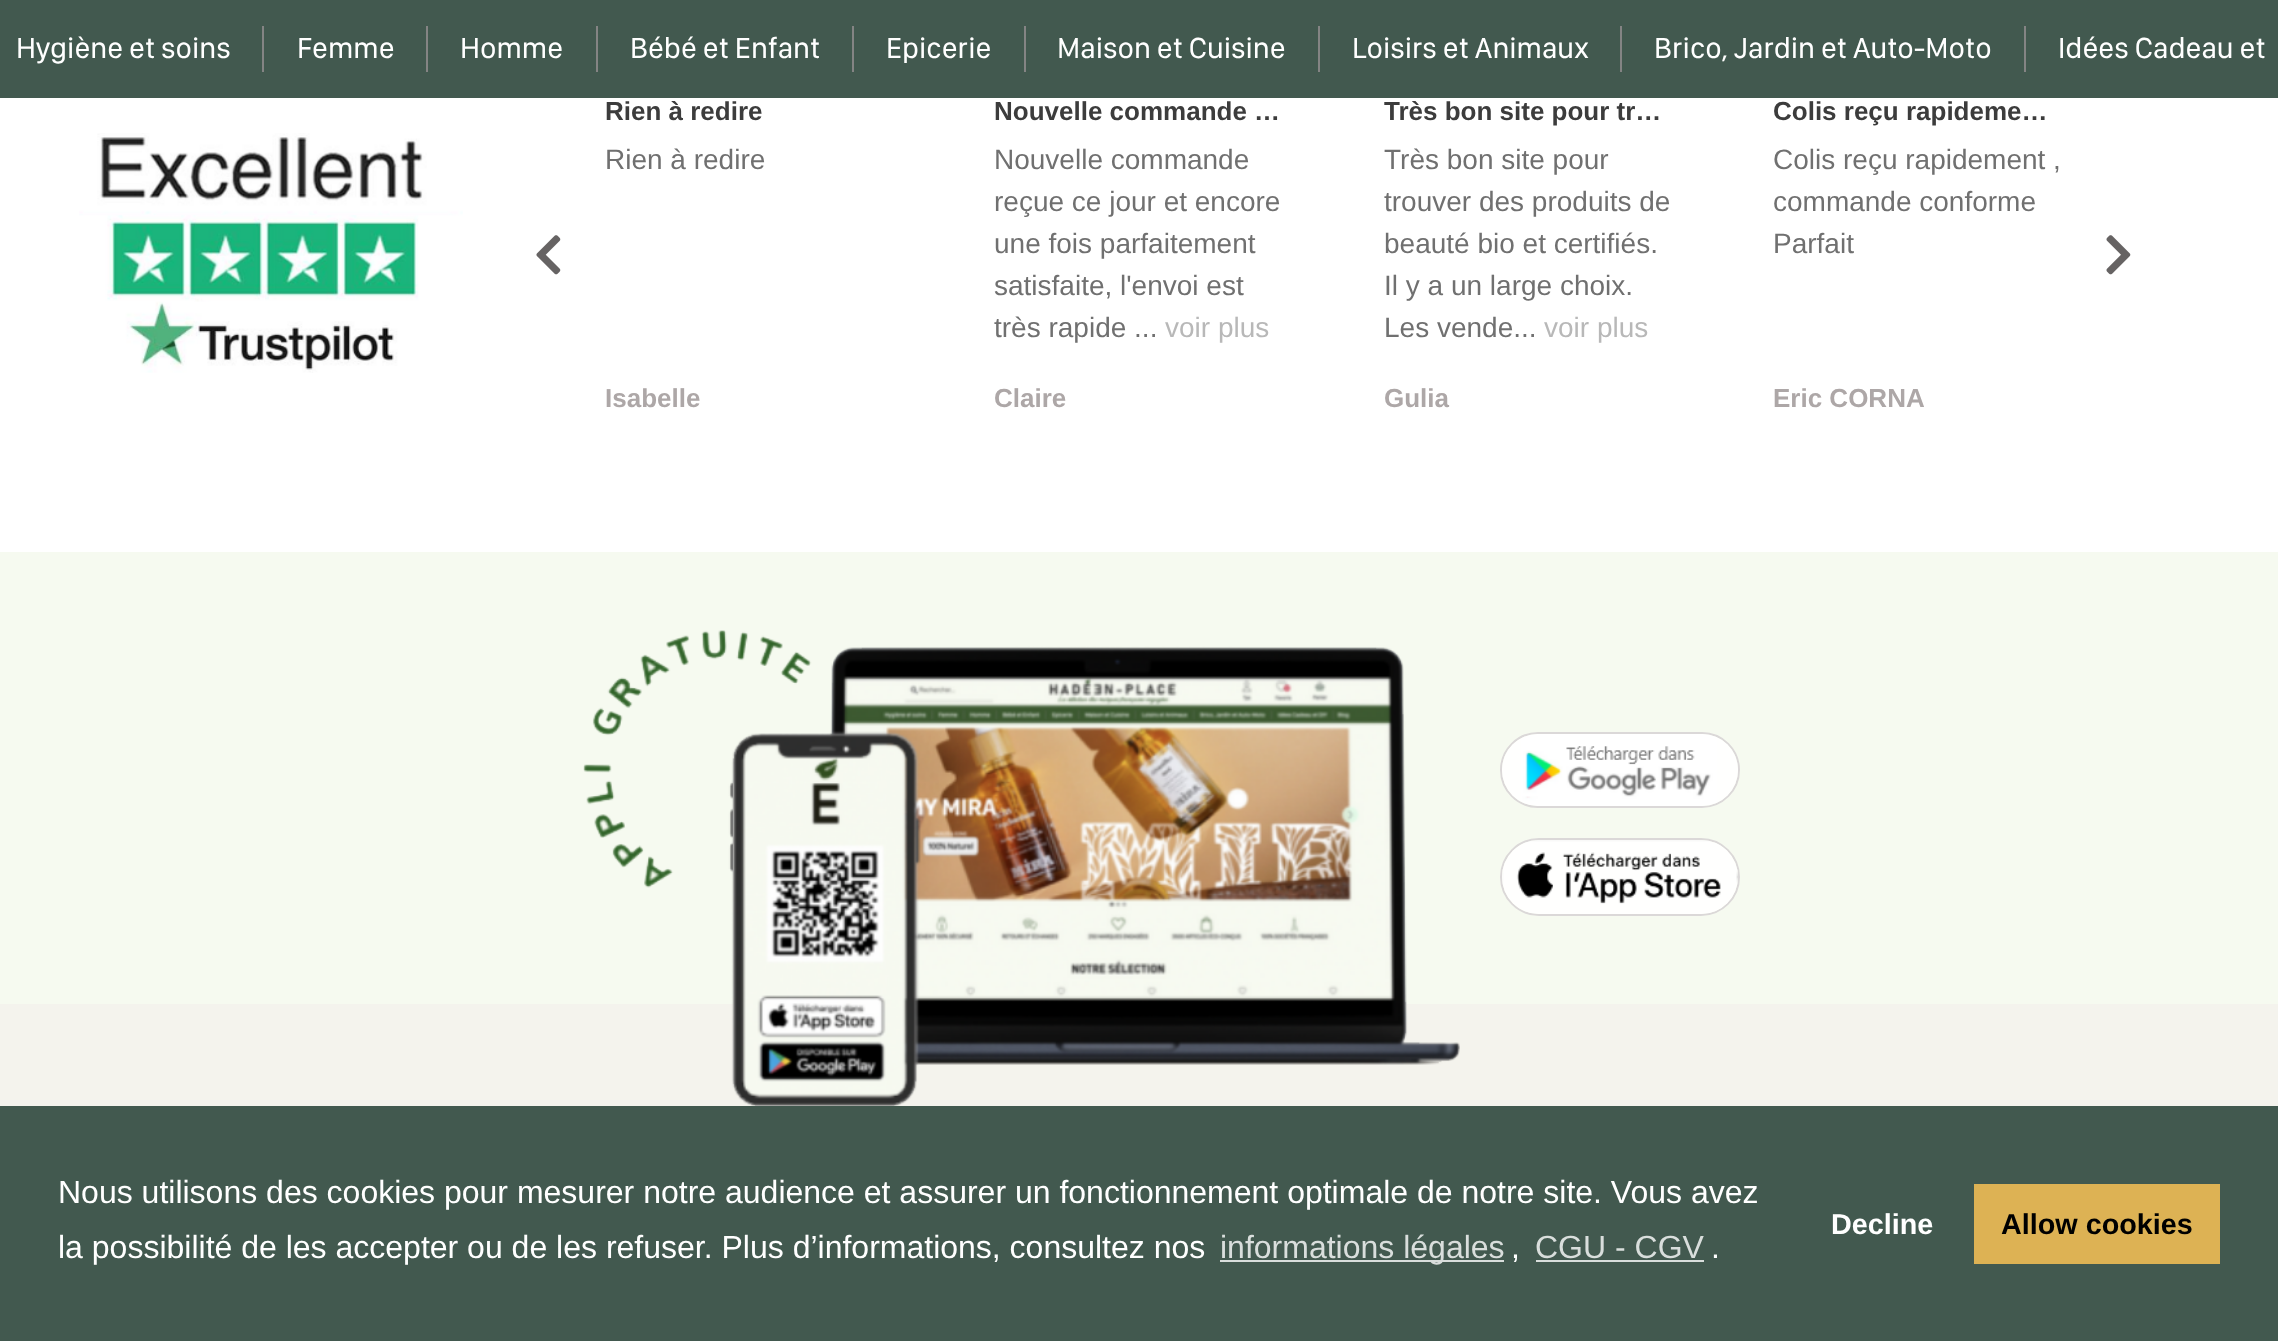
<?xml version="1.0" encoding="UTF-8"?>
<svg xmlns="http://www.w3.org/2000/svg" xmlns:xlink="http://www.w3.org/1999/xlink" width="2278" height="1341">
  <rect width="100%" height="100%" fill="#f6faf0" />
  <rect width="2278" height="98" fill="#42594f" />
  <rect x="262" y="26" width="2" height="46" fill="#848484" />
  <rect x="426" y="26" width="2" height="46" fill="#848484" />
  <rect x="596" y="26" width="2" height="46" fill="#848484" />
  <rect x="852" y="26" width="2" height="46" fill="#848484" />
  <rect x="1024" y="26" width="2" height="46" fill="#848484" />
  <rect x="1318" y="26" width="2" height="46" fill="#848484" />
  <rect x="1620" y="26" width="2" height="46" fill="#848484" />
  <rect x="2024" y="26" width="2" height="46" fill="#848484" />
  <rect y="98" width="2278" height="454" fill="#ffffff" />
  <image x="79" y="133" width="384" height="240" xlink:href="image1.png" />
  <image x="536" y="235" width="25" height="40" xlink:href="image2.png" />
  <image x="2106" y="235" width="25" height="40" xlink:href="image3.png" />
  <rect y="1004" width="2278" height="102" fill="#f4f3ed" />
  <image x="583" y="630" width="877" height="476" xlink:href="image4.png" />
  <rect x="1501" y="733" width="238" height="74" rx="37" fill="none" stroke="#dbd8d8" stroke-width="2" />
  <image x="1502" y="734" width="236" height="72" xlink:href="image5.png" />
  <rect x="1501" y="839" width="238" height="76" rx="38" fill="none" stroke="#dbd8d8" stroke-width="2" />
  <image x="1502" y="840" width="236" height="74" xlink:href="image6.png" />
  <rect y="1106" width="2278" height="235" fill="#42594f" />
  <rect x="1220" y="1260" width="284" height="2" fill="#d9dedc" />
  <rect x="1536" y="1260" width="168" height="2" fill="#d9dedc" />
  <rect x="1974" y="1184" width="246" height="80" fill="#ddb254" />
  <text x="16" y="58" style="font-family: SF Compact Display; font-size: 30px; fill: #ffffff">Hygiène et soins</text>
  <text x="297" y="58" style="font-family: SF Compact Display; font-size: 30px; fill: #ffffff">Femme</text>
  <text x="460" y="58" style="font-family: SF Compact Display; font-size: 30px; fill: #ffffff">Homme</text>
  <text x="630" y="58" style="font-family: SF Compact Display; font-size: 30px; fill: #ffffff">Bébé et Enfant</text>
  <text x="886" y="58" style="font-family: SF Compact Display; font-size: 30px; fill: #ffffff">Epicerie</text>
  <text x="1057" y="58" style="font-family: SF Compact Display; font-size: 30px; fill: #ffffff">Maison et Cuisine</text>
  <text x="1352" y="58" style="font-family: SF Compact Display; font-size: 30px; fill: #ffffff">Loisirs et Animaux</text>
  <text x="1654" y="58" style="font-family: SF Compact Display; font-size: 30px; fill: #ffffff">Brico, Jardin et Auto-Moto</text>
  <text x="2058" y="58" style="font-family: SF Compact Display; font-size: 30px; fill: #ffffff">Idées Cadeau et</text>
  <text x="605" y="120" style="font-family: Liberation Sans; font-size: 26px; font-weight: bold; fill: #3c3c3c">Rien à redire</text>
  <text x="605" y="169" style="font-family: Liberation Sans; font-size: 28px; fill: #707070">Rien à redire</text>
  <text x="605" y="407" style="font-family: Liberation Sans; font-size: 26px; font-weight: bold; fill: #ada7a7">Isabelle</text>
  <text x="994" y="120" style="font-family: Liberation Sans; font-size: 26px; font-weight: bold; fill: #3c3c3c">Nouvelle commande …</text>
  <text x="994" y="169" style="font-family: Liberation Sans; font-size: 28px; fill: #707070">Nouvelle commande</text>
  <text x="994" y="211" style="font-family: Liberation Sans; font-size: 28px; fill: #707070">reçue ce jour et encore</text>
  <text x="994" y="253" style="font-family: Liberation Sans; font-size: 28px; fill: #707070">une fois parfaitement</text>
  <text x="994" y="295" style="font-family: Liberation Sans; font-size: 28px; fill: #707070">satisfaite, l'envoi est</text>
  <text x="994" y="337" style="font-family: Liberation Sans; font-size: 28px; fill: #707070">très rapide ...</text>
  <text x="1165" y="337" style="font-family: Liberation Sans; font-size: 28px; fill: #b8b8b8">voir plus</text>
  <text x="994" y="407" style="font-family: Liberation Sans; font-size: 26px; font-weight: bold; fill: #ada7a7">Claire</text>
  <text x="1384" y="120" style="font-family: Liberation Sans; font-size: 26px; font-weight: bold; fill: #3c3c3c">Très bon site pour tr…</text>
  <text x="1384" y="169" style="font-family: Liberation Sans; font-size: 28px; fill: #707070">Très bon site pour</text>
  <text x="1384" y="211" style="font-family: Liberation Sans; font-size: 28px; fill: #707070">trouver des produits de</text>
  <text x="1384" y="253" style="font-family: Liberation Sans; font-size: 28px; fill: #707070">beauté bio et certifiés.</text>
  <text x="1384" y="295" style="font-family: Liberation Sans; font-size: 28px; fill: #707070">Il y a un large choix.</text>
  <text x="1384" y="337" style="font-family: Liberation Sans; font-size: 28px; fill: #707070">Les vende...</text>
  <text x="1544" y="337" style="font-family: Liberation Sans; font-size: 28px; fill: #b8b8b8">voir plus</text>
  <text x="1384" y="407" style="font-family: Liberation Sans; font-size: 26px; font-weight: bold; fill: #ada7a7">Gulia</text>
  <text x="1773" y="120" style="font-family: Liberation Sans; font-size: 26px; font-weight: bold; fill: #3c3c3c">Colis reçu rapideme…</text>
  <text x="1773" y="169" style="font-family: Liberation Sans; font-size: 28px; fill: #707070">Colis reçu rapidement ,</text>
  <text x="1773" y="211" style="font-family: Liberation Sans; font-size: 28px; fill: #707070">commande conforme</text>
  <text x="1773" y="253" style="font-family: Liberation Sans; font-size: 28px; fill: #707070">Parfait</text>
  <text x="1773" y="407" style="font-family: Liberation Sans; font-size: 26px; font-weight: bold; fill: #ada7a7">Eric CORNA</text>
  <text x="58" y="1203" style="font-family: Liberation Sans; font-size: 32px; fill: #ffffff">Nous utilisons des cookies pour mesurer notre audience et assurer un fonctionnement optimale de notre site. Vous avez</text>
  <text x="58" y="1258" style="font-family: Liberation Sans; font-size: 32px; fill: #ffffff">la possibilité de les accepter ou de les refuser. Plus d’informations, consultez nos</text>
  <text x="1220" y="1258" style="font-family: Liberation Sans; font-size: 32px; fill: #d9dedc">informations légales</text>
  <text x="1511" y="1258" style="font-family: Liberation Sans; font-size: 32px; fill: #ffffff">,</text>
  <text x="1535" y="1258" style="font-family: Liberation Sans; font-size: 32px; fill: #d9dedc">CGU - CGV</text>
  <text x="1711" y="1258" style="font-family: Liberation Sans; font-size: 32px; fill: #ffffff">.</text>
  <text x="1831" y="1234" style="font-family: Liberation Sans; font-size: 28.75px; font-weight: bold; fill: #ffffff">Decline</text>
  <text x="2001" y="1234" style="font-family: Liberation Sans; font-size: 28.75px; font-weight: bold; fill: #000000">Allow cookies</text>
</svg>
